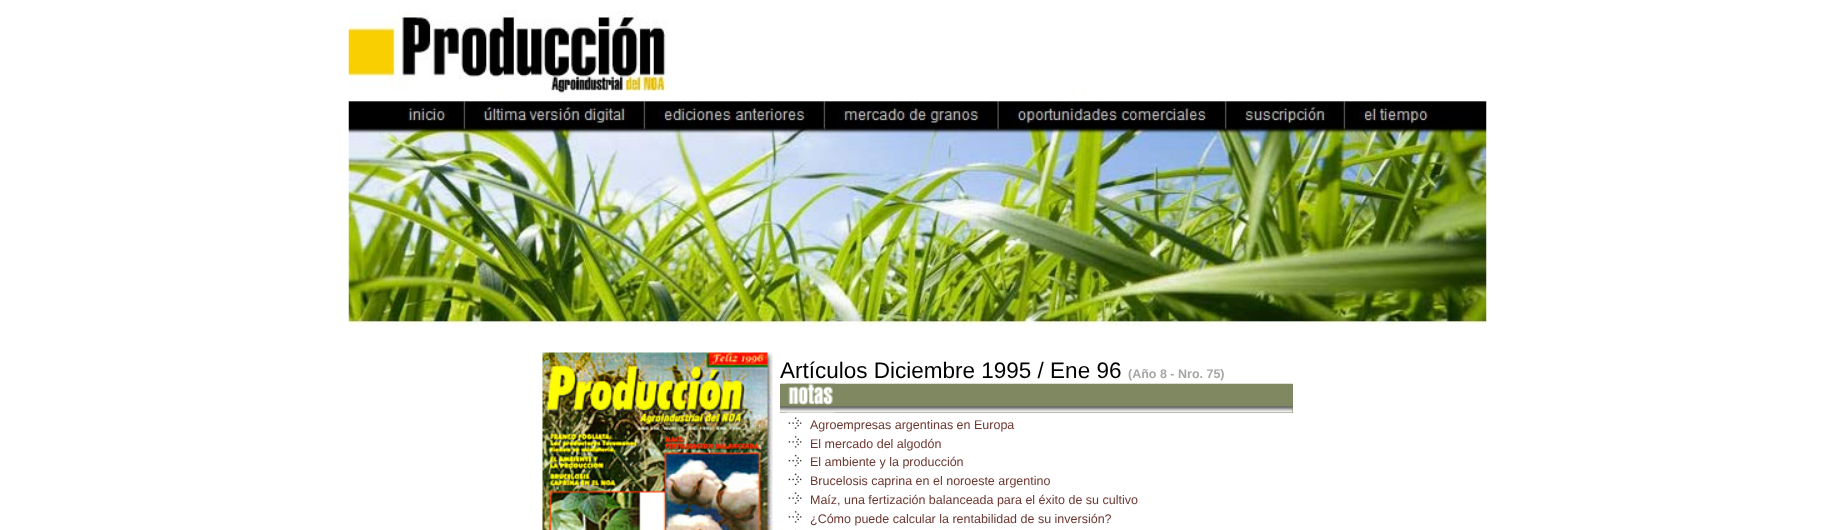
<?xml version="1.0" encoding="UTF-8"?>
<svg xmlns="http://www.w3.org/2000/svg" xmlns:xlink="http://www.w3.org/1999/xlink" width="1834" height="530">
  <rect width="100%" height="100%" fill="#ffffff" />
  <image x="348" y="10" width="1139" height="317" xlink:href="image1.png" />
  <image x="542" y="352" width="231" height="178" xlink:href="image2.png" />
  <rect x="780" y="384" width="513" height="29" fill="#7f8860" />
  <image x="780" y="383" width="513" height="30" xlink:href="image3.png" />
  <image x="786" y="383" width="49" height="30" xlink:href="image4.png" />
  <image x="788" y="417" width="14" height="12" xlink:href="image5.png" />
  <image x="788" y="436" width="14" height="12" xlink:href="image6.png" />
  <image x="788" y="454" width="14" height="13" xlink:href="image7.png" />
  <image x="788" y="473" width="14" height="12" xlink:href="image8.png" />
  <image x="788" y="492" width="14" height="12" xlink:href="image5.png" />
  <image x="788" y="511" width="14" height="12" xlink:href="image6.png" />
  <rect x="795" y="529" width="1" height="1" fill="#f2f2f2" />
  <text x="780" y="378" style="font-family: Liberation Sans; font-size: 22.5px; fill: #000000">Artículos Diciembre 1995 / Ene 96</text>
  <text x="1128" y="378" style="font-family: Liberation Sans; font-size: 12.5px; font-weight: bold; fill: #a6a6a6">(Año 8 - Nro. 75)</text>
  <text x="810" y="429" style="font-family: Liberation Sans; font-size: 12.5px; fill: #6c3730">Agroempresas argentinas en Europa</text>
  <text x="810" y="448" style="font-family: Liberation Sans; font-size: 12.5px; fill: #6c3730">El mercado del algodón</text>
  <text x="810" y="466" style="font-family: Liberation Sans; font-size: 12.5px; fill: #6c3730">El ambiente y la producción</text>
  <text x="810" y="485" style="font-family: Liberation Sans; font-size: 12.5px; fill: #6c3730">Brucelosis caprina en el noroeste argentino</text>
  <text x="810" y="504" style="font-family: Liberation Sans; font-size: 12.5px; fill: #6c3730">Maíz, una fertización balanceada para el éxito de su cultivo</text>
  <text x="810" y="523" style="font-family: Liberation Sans; font-size: 12.5px; fill: #6c3730">¿Cómo puede calcular la rentabilidad de su inversión?</text>
</svg>
